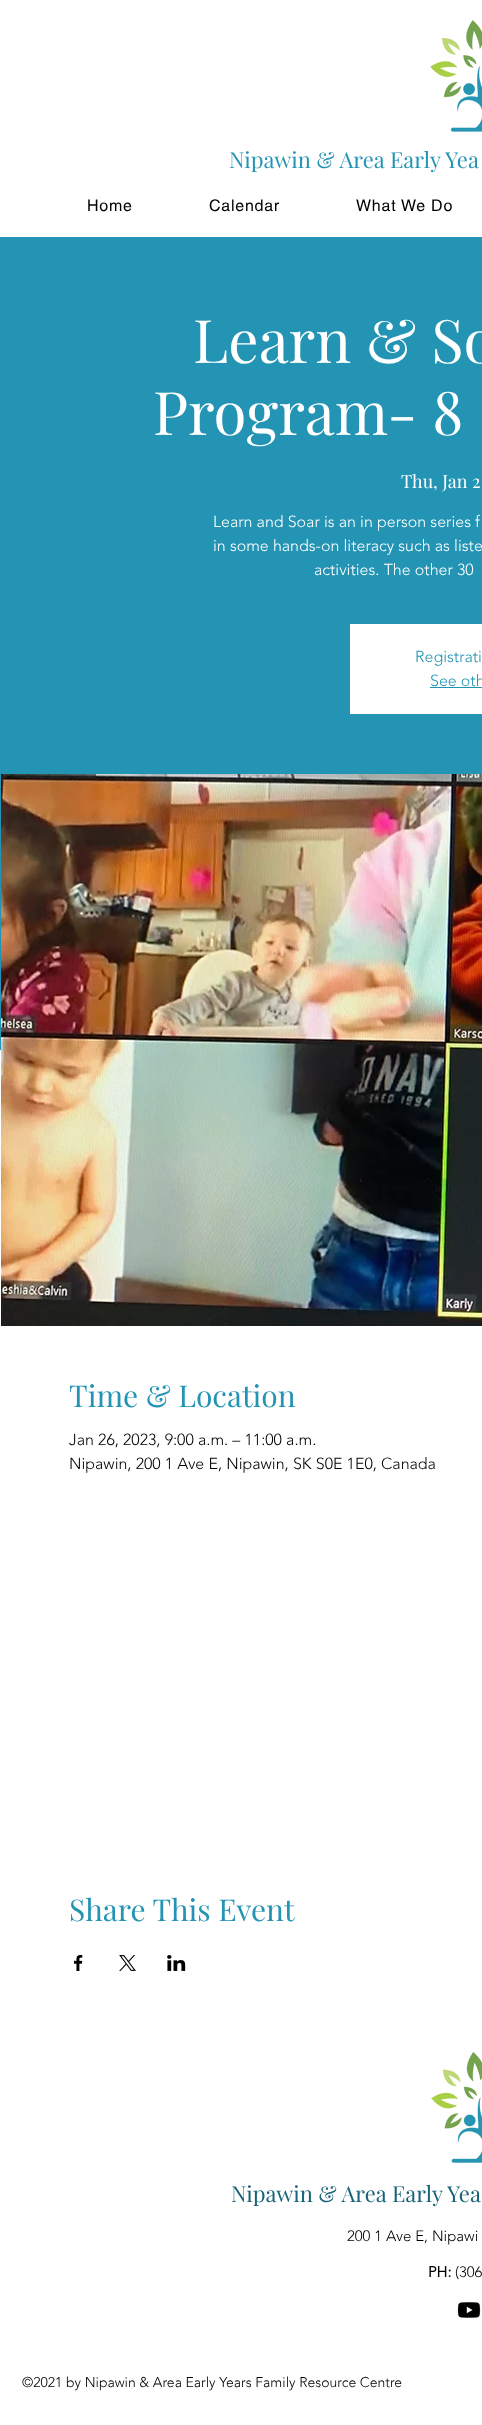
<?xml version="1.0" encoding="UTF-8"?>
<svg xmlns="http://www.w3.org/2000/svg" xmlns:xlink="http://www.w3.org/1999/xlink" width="482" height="2425">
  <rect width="100%" height="100%" fill="#ffffff" />
  <image x="430" y="20" width="52" height="112" xlink:href="image1.png" />
  <rect y="237" width="482" height="813" fill="#2494b4" />
  <rect x="350" y="624" width="132" height="90" fill="#ffffff" />
  <rect x="430" y="687" width="52" height="1" fill="#2494b4" />
  <image x="1" y="774" width="481" height="552" xlink:href="image2.png" />
  <image x="74" y="1955" width="9" height="16" xlink:href="image3.png" />
  <image x="119" y="1955" width="17" height="16" xlink:href="image4.png" />
  <image x="167" y="1955" width="19" height="16" xlink:href="image5.png" />
  <image x="431" y="2052" width="51" height="111" xlink:href="image6.png" />
  <image x="457" y="2302" width="24" height="16" xlink:href="image7.png" />
  <text x="229" y="168" style="font-family: Playfair Display; font-size: 22px; fill: #2494b4">Nipawin &amp; Area Early Yea</text>
  <text x="87" y="211" style="font-family: helvetica; font-size: 16px; letter-spacing: 0.75px; fill: #000000">Home</text>
  <text x="209" y="211" style="font-family: helvetica; font-size: 16px; letter-spacing: 0.75px; fill: #000000">Calendar</text>
  <text x="356" y="211" style="font-family: helvetica; font-size: 16px; letter-spacing: 0.75px; fill: #000000">What We Do</text>
  <text x="193" y="363" style="font-family: Playfair Display; font-size: 60px; fill: #ffffff">Learn &amp; So</text>
  <text x="153" y="435" style="font-family: Playfair Display; font-size: 60px; fill: #ffffff">Program- 8</text>
  <text x="401" y="488" style="font-family: Playfair Display; font-size: 18px; fill: #ffffff">Thu, Jan 2</text>
  <text x="213" y="527" style="font-family: 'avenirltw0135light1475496'; font-size: 16px; font-weight: 300; fill: #ffffff">Learn and Soar is an in person series f</text>
  <text x="213" y="551" style="font-family: 'avenirltw0135light1475496'; font-size: 16px; font-weight: 300; fill: #ffffff">in some hands-on literacy such as liste</text>
  <text x="314" y="575" style="font-family: 'avenirltw0135light1475496'; font-size: 16px; font-weight: 300; fill: #ffffff">activities. The other 30</text>
  <text x="415" y="662" style="font-family: 'avenirltw0135light1475496'; font-size: 16px; font-weight: 300; fill: #2494b4">Registrati</text>
  <text x="430" y="686" style="font-family: 'avenirltw0135light1475496'; font-size: 16px; font-weight: 300; fill: #2494b4">See oth</text>
  <text x="69" y="1407" style="font-family: Playfair Display; font-size: 30px; fill: #2494b4">Time &amp; Location</text>
  <text x="69" y="1445" style="font-family: 'avenirltw0135light1475496'; font-size: 16px; font-weight: 300; fill: #000000">Jan 26, 2023, 9:00 a.m. – 11:00 a.m.</text>
  <text x="69" y="1469" style="font-family: 'avenirltw0135light1475496'; font-size: 16px; font-weight: 300; fill: #000000">Nipawin, 200 1 Ave E, Nipawin, SK S0E 1E0, Canada</text>
  <text x="69" y="1921" style="font-family: Playfair Display; font-size: 30px; fill: #2494b4">Share This Event</text>
  <text x="231" y="2202" style="font-family: Playfair Display; font-size: 22px; fill: #186378">Nipawin &amp; Area Early Yea</text>
  <text x="347" y="2241" style="font-family: 'avenirltw0135light1475496'; font-size: 15px; font-weight: 300; fill: #000000">200 1 Ave E, Nipawi</text>
  <text x="428" y="2277" style="font-family: 'avenirltw0135light1475496'; font-size: 15px; font-weight: bold; fill: #000000">PH:</text>
  <text x="455" y="2277" style="font-family: 'avenirltw0135light1475496'; font-size: 15px; font-weight: 300; fill: #000000">(306</text>
  <text x="22" y="2387" style="font-family: 'avenirltw0135light1475496'; font-size: 14px; font-weight: 300; fill: #000000">©2021 by Nipawin &amp; Area Early Years Family Resource Centre</text>
</svg>
